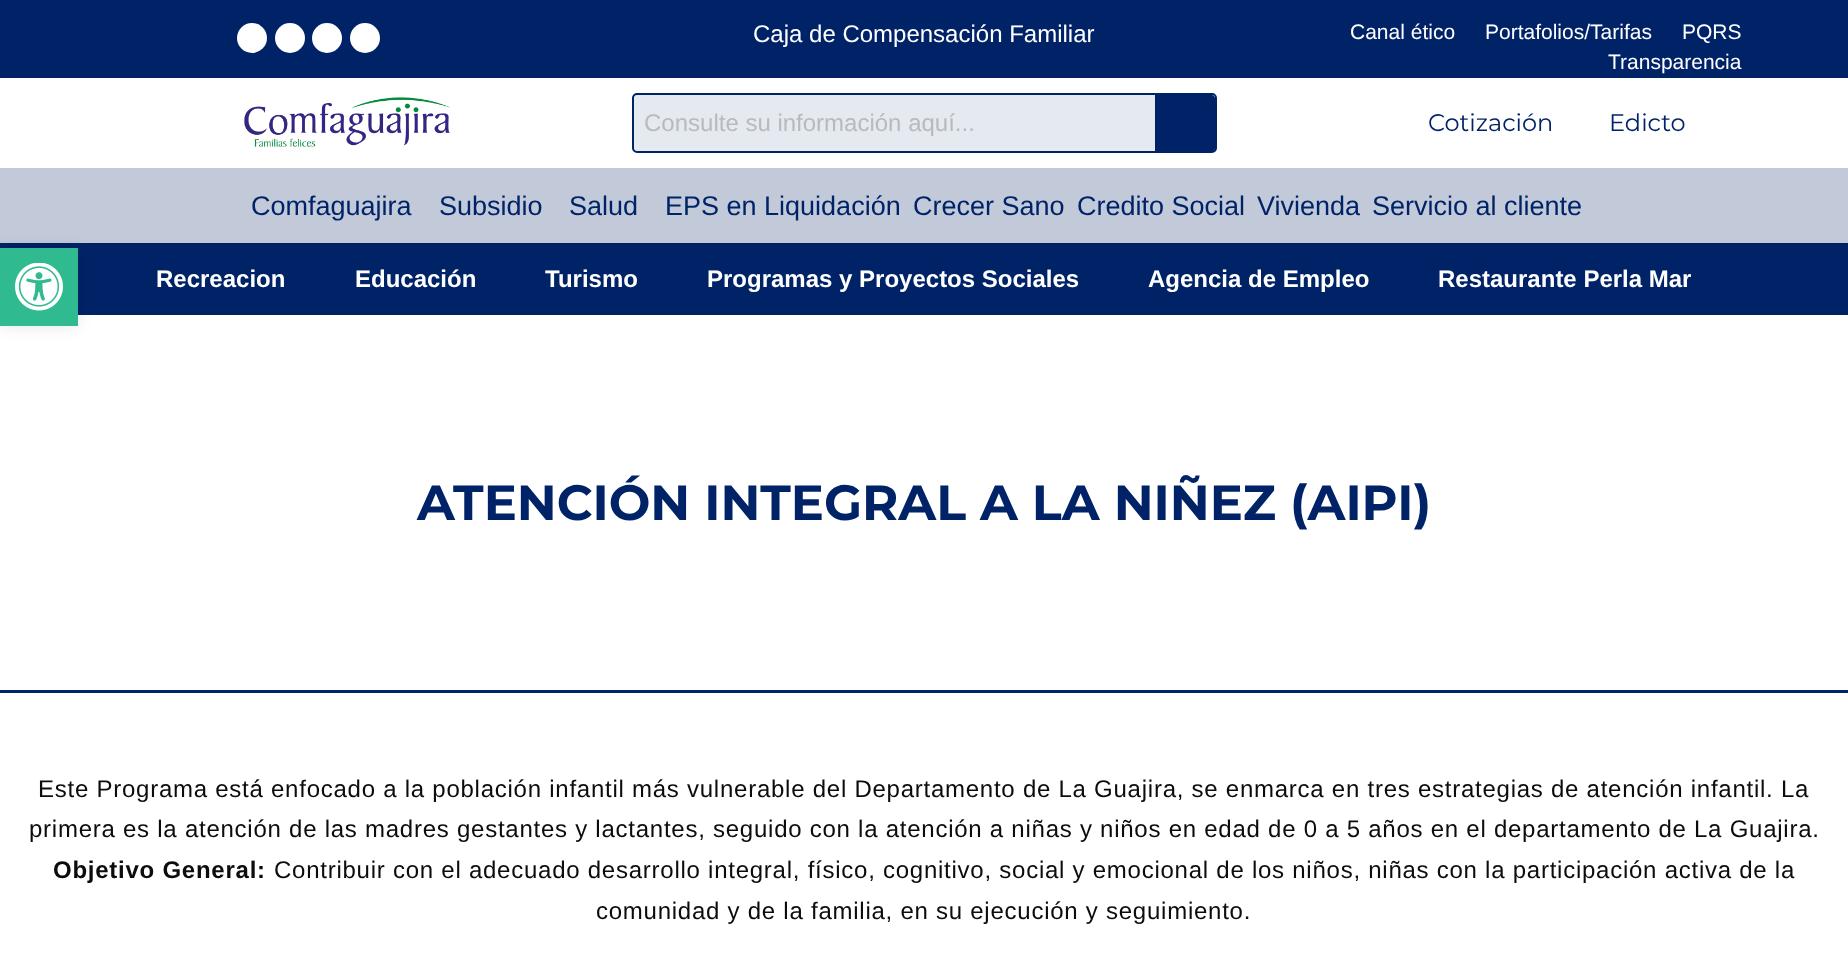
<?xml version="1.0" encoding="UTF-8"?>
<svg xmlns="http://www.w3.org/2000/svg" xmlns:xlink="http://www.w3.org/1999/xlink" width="1848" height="953">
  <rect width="100%" height="100%" fill="#ffffff" />
  <rect width="1848" height="78" fill="#002368" />
  <circle cx="252" cy="38" r="15" fill="#ffffff" />
  <circle cx="290" cy="38" r="15" fill="#ffffff" />
  <circle cx="327" cy="38" r="15" fill="#ffffff" />
  <circle cx="365" cy="38" r="15" fill="#ffffff" />
  <image x="244" y="97" width="206" height="50" xlink:href="image1.png" />
  <rect x="633" y="94" width="583" height="58" rx="4" fill="none" stroke="#002368" stroke-width="2" />
  <path d="M 636 95 h 519 v 57 h -519 c -1.5 0 -3 -1.5 -3 -3 v -51 c 0 -1.5 1.5 -3 3 -3 z" fill="#002368" fill-opacity="0.1" />
  <path d="M 1155 95 h 57 c 1.5 0 3 1.5 3 3 v 51 c 0 1.5 -1.5 3 -3 3 h -57 z" fill="#002368" />
  <rect y="168" width="1848" height="75" fill="#c2cada" />
  <rect y="243" width="1848" height="72" fill="#002368" />
  <rect y="690" width="1848" height="3" fill="#002368" />
  <rect y="248" width="78" height="78" fill="#000000" fill-opacity="0.1" filter="blur(7.5px)" />
  <rect y="248" width="78" height="78" fill="#30ba8f" />
  <image x="15" y="263" width="48" height="48" xlink:href="image2.png" />
  <text x="753" y="42" style="font-family: Liberation Sans; font-size: 24px; fill: #ffffff">Caja de Compensación Familiar</text>
  <text x="1350" y="39" style="font-family: Liberation Sans; font-size: 21px; fill: #ffffff">Canal ético</text>
  <text x="1485" y="39" style="font-family: Liberation Sans; font-size: 21px; fill: #ffffff">Portafolios/Tarifas</text>
  <text x="1682" y="39" style="font-family: Liberation Sans; font-size: 21px; fill: #ffffff">PQRS</text>
  <text x="1608" y="69" style="font-family: Liberation Sans; font-size: 21px; fill: #ffffff">Transparencia</text>
  <text x="644" y="131" style="font-family: Liberation Sans; font-size: 24px; fill: #b8babe">Consulte su información aquí...</text>
  <text x="1428" y="131" style="font-family: Montserrat; font-size: 24px; fill: #002368">Cotización</text>
  <text x="1609" y="131" style="font-family: Montserrat; font-size: 24px; fill: #002368">Edicto</text>
  <text x="251" y="215" style="font-family: Liberation Sans; font-size: 27px; fill: #002368">Comfaguajira</text>
  <text x="439" y="215" style="font-family: Liberation Sans; font-size: 27px; fill: #002368">Subsidio</text>
  <text x="569" y="215" style="font-family: Liberation Sans; font-size: 27px; fill: #002368">Salud</text>
  <text x="665" y="215" style="font-family: Liberation Sans; font-size: 27px; fill: #002368">EPS en Liquidación</text>
  <text x="913" y="215" style="font-family: Liberation Sans; font-size: 27px; fill: #002368">Crecer Sano</text>
  <text x="1077" y="215" style="font-family: Liberation Sans; font-size: 27px; fill: #002368">Credito Social</text>
  <text x="1257" y="215" style="font-family: Liberation Sans; font-size: 27px; fill: #002368">Vivienda</text>
  <text x="1372" y="215" style="font-family: Liberation Sans; font-size: 27px; fill: #002368">Servicio al cliente</text>
  <text x="156" y="287" style="font-family: Liberation Sans; font-size: 24px; font-weight: bold; fill: #ffffff">Recreacion</text>
  <text x="355" y="287" style="font-family: Liberation Sans; font-size: 24px; font-weight: bold; fill: #ffffff">Educación</text>
  <text x="545" y="287" style="font-family: Liberation Sans; font-size: 24px; font-weight: bold; fill: #ffffff">Turismo</text>
  <text x="707" y="287" style="font-family: Liberation Sans; font-size: 24px; font-weight: bold; fill: #ffffff">Programas y Proyectos Sociales</text>
  <text x="1148" y="287" style="font-family: Liberation Sans; font-size: 24px; font-weight: bold; fill: #ffffff">Agencia de Empleo</text>
  <text x="1438" y="287" style="font-family: Liberation Sans; font-size: 24px; font-weight: bold; fill: #ffffff">Restaurante Perla Mar</text>
  <text x="417" y="520" style="font-family: Montserrat; font-size: 49.4px; font-weight: bold; fill: #002368">ATENCIÓN INTEGRAL A LA NIÑEZ (AIPI)</text>
  <text x="38" y="797" style="font-family: Liberation Sans; font-size: 24px; letter-spacing: 0.75px; fill: #0c0c0e">Este Programa está enfocado a la población infantil más vulnerable del Departamento de La Guajira, se enmarca en tres estrategias de atención infantil. La</text>
  <text x="29" y="837" style="font-family: Liberation Sans; font-size: 24px; letter-spacing: 0.75px; fill: #0c0c0e">primera es la atención de las madres gestantes y lactantes, seguido con la atención a niñas y niños en edad de 0 a 5 años en el departamento de La Guajira.</text>
  <text x="53" y="878" style="font-family: Liberation Sans; font-size: 24px; font-weight: bold; letter-spacing: 0.75px; fill: #0c0c0e">Objetivo General:</text>
  <text x="274" y="878" style="font-family: Liberation Sans; font-size: 24px; letter-spacing: 0.75px; fill: #0c0c0e">Contribuir con el adecuado desarrollo integral, físico, cognitivo, social y emocional de los niños, niñas con la participación activa de la</text>
  <text x="596" y="919" style="font-family: Liberation Sans; font-size: 24px; letter-spacing: 0.75px; fill: #0c0c0e">comunidad y de la familia, en su ejecución y seguimiento.</text>
</svg>
